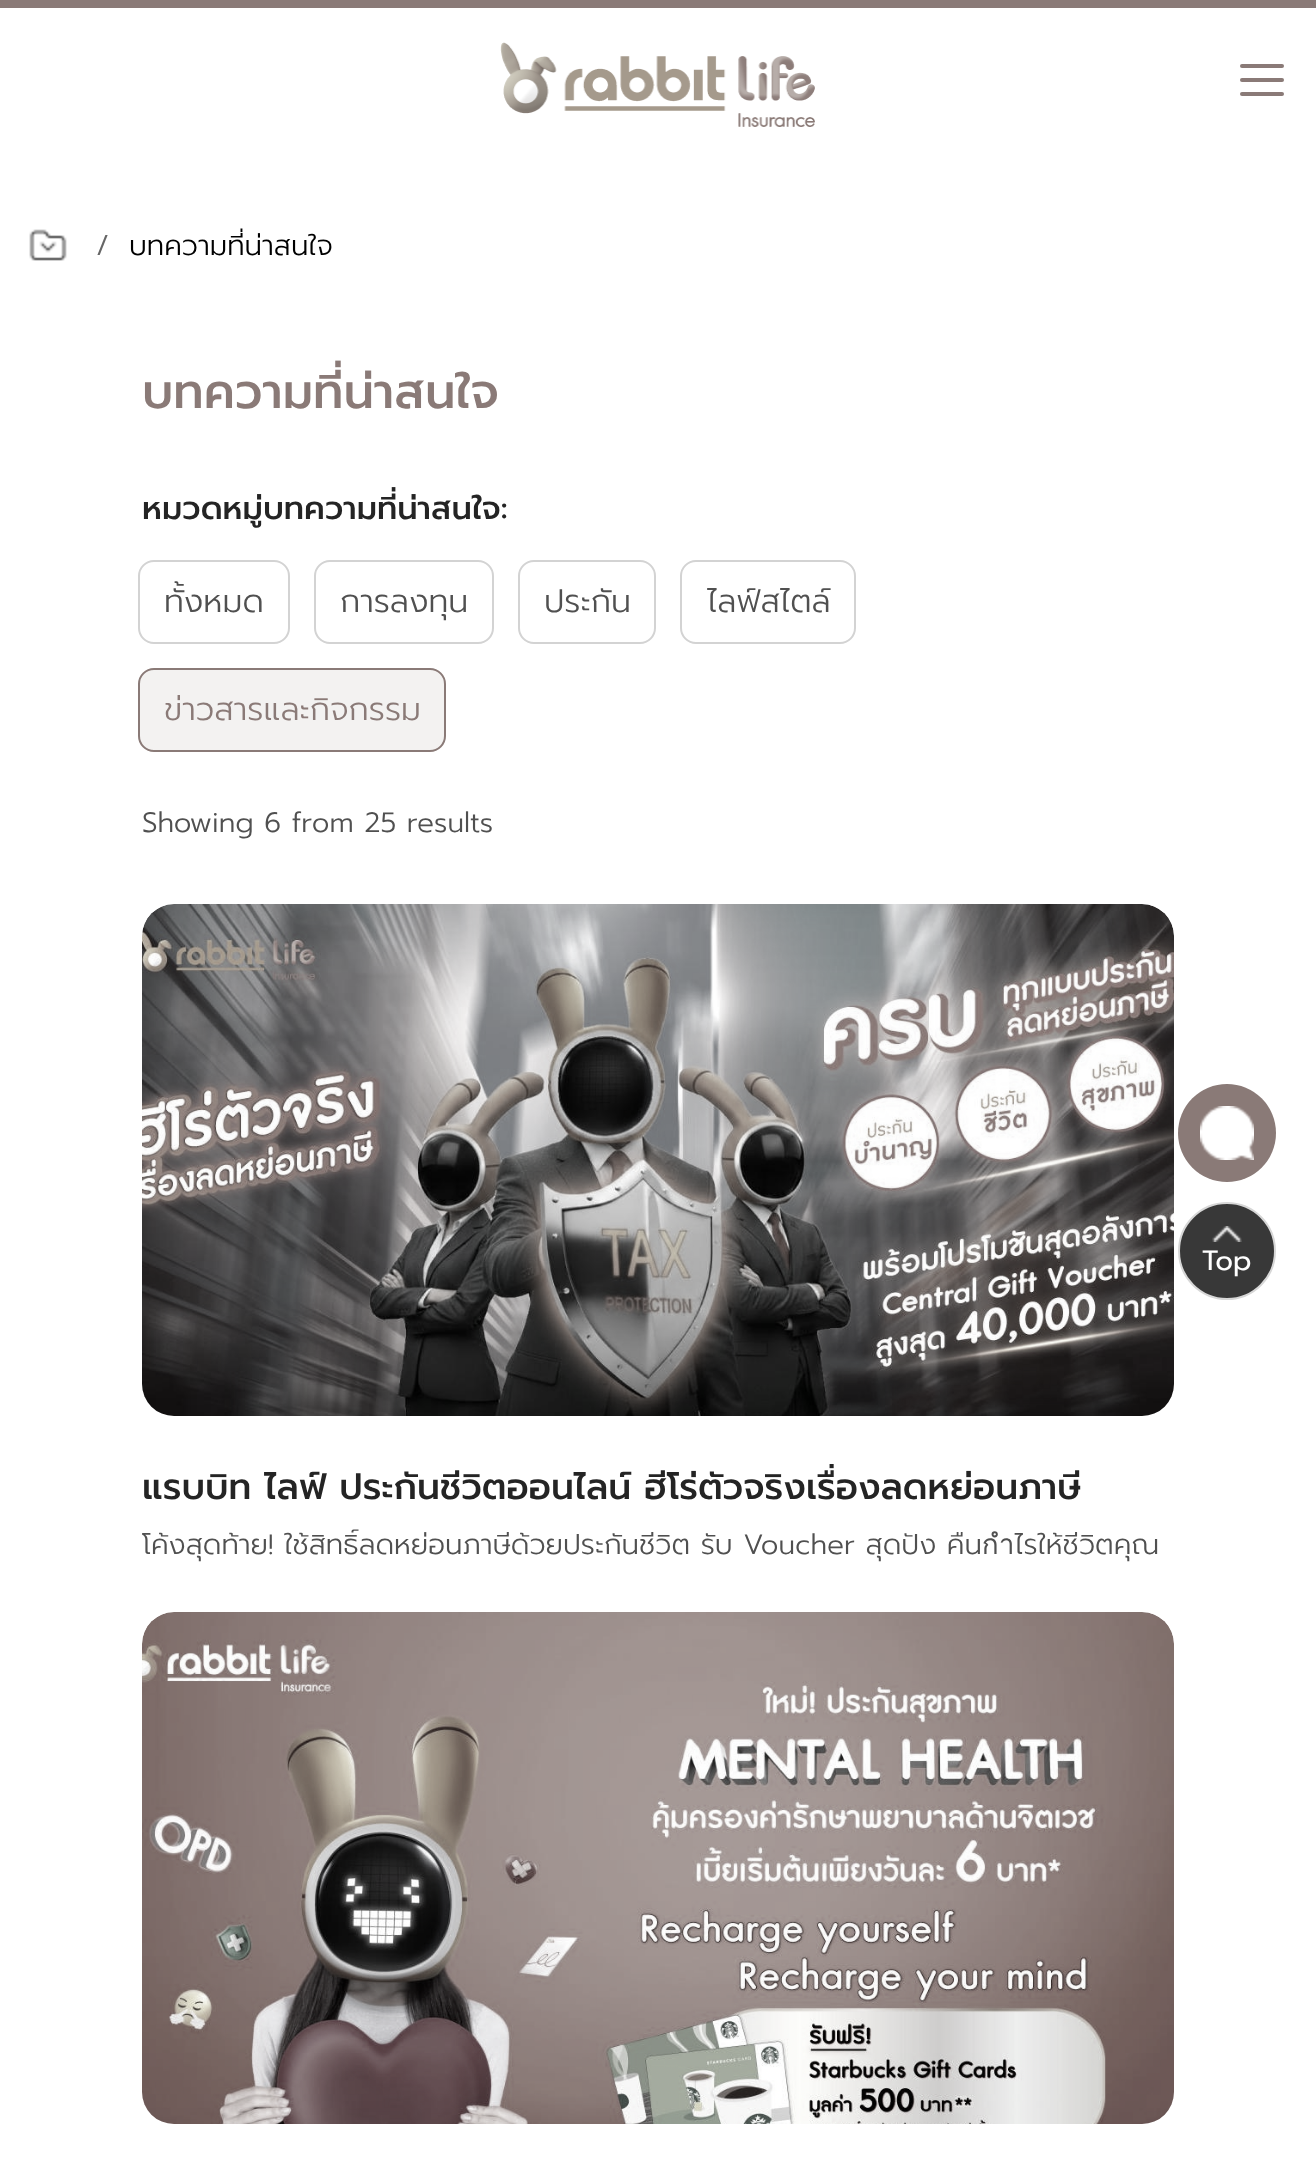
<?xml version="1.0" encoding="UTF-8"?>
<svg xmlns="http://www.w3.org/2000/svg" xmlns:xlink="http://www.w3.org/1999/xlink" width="1316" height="2165">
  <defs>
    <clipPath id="clip1"><rect x="142" y="1464" width="1032" height="50" /></clipPath>
    <clipPath id="clip2"><rect x="142" y="1526" width="1032" height="38" /></clipPath>
  </defs>
  <rect width="100%" height="100%" fill="#ffffff" />
  <rect width="1316" height="8" fill="#8a7a77" />
  <image x="500" y="42" width="315" height="85" xlink:href="image1.png" />
  <rect x="1240" y="64" width="44" height="4" rx="2" fill="#8a7a77" />
  <rect x="1240" y="78" width="44" height="4" rx="2" fill="#8a7a77" />
  <rect x="1240" y="92" width="44" height="4" rx="2" fill="#8a7a77" />
  <image x="29" y="229" width="38" height="32" xlink:href="image2.png" />
  <rect x="139" y="561" width="150" height="82" rx="15" fill="none" stroke="#d3d3d3" stroke-width="2" />
  <rect x="315" y="561" width="178" height="82" rx="15" fill="none" stroke="#d3d3d3" stroke-width="2" />
  <rect x="519" y="561" width="136" height="82" rx="15" fill="none" stroke="#d3d3d3" stroke-width="2" />
  <rect x="681" y="561" width="174" height="82" rx="15" fill="none" stroke="#d3d3d3" stroke-width="2" />
  <rect x="139" y="669" width="306" height="82" rx="15" fill="#f3f2f1" stroke="#8a7a77" stroke-width="2" />
  <image x="142" y="904" width="1032" height="512" xlink:href="image3.png" />
  <image x="142" y="1612" width="1032" height="512" xlink:href="image4.png" />
  <circle cx="1227" cy="1133" r="49" fill="#8a7a77" />
  <image x="1200" y="1106" width="54" height="54" xlink:href="image5.png" />
  <circle cx="1227" cy="1251" r="48" fill="#383838" stroke="#d7d7d7" stroke-width="2" />
  <image x="1212" y="1226" width="30" height="16" xlink:href="image6.png" />
  <text x="96" y="255" style="font-family: Prompt; font-size: 28px; font-weight: 300; fill: #666666">/</text>
  <text x="129" y="255" style="font-family: Prompt; font-size: 28px; font-weight: 300; fill: #000000">บทความที่น่าสนใจ</text>
  <text x="142" y="408" style="font-family: Prompt; font-size: 48px; font-weight: 500; fill: #8a7a77">บทความที่น่าสนใจ</text>
  <text x="142" y="519" style="font-family: Prompt; font-size: 32px; font-weight: 500; fill: #242424">หมวดหมู่บทความที่น่าสนใจ:</text>
  <text x="164" y="612" style="font-family: Prompt; font-size: 32px; font-weight: 300; fill: #505050">ทั้งหมด</text>
  <text x="340" y="612" style="font-family: Prompt; font-size: 32px; font-weight: 300; fill: #505050">การลงทุน</text>
  <text x="544" y="612" style="font-family: Prompt; font-size: 32px; font-weight: 300; fill: #505050">ประกัน</text>
  <text x="707" y="612" style="font-family: Prompt; font-size: 32px; font-weight: 300; fill: #505050">ไลฟ์สไตล์</text>
  <text x="164" y="720" style="font-family: Prompt; font-size: 32px; font-weight: 300; fill: #8a7a77">ข่าวสารและกิจกรรม</text>
  <text x="142" y="832" style="font-family: Prompt; font-size: 28px; font-weight: 300; fill: #505050">Showing 6 from 25 results</text>
  <g clip-path="url(#clip1)">
    <text x="142" y="1499" style="font-family: Prompt; font-size: 36px; font-weight: 500; fill: #242424">แรบบิท ไลฟ์ ประกันชีวิตออนไลน์ ฮีโร่ตัวจริงเรื่องลดหย่อนภาษี</text>
  </g>
  <g clip-path="url(#clip2)">
    <text x="142" y="1554" style="font-family: Prompt; font-size: 28px; font-weight: 300; fill: #505050">โค้งสุดท้าย! ใช้สิทธิ์ลดหย่อนภาษีด้วยประกันชีวิต รับ Voucher สุดปัง คืนกำไรให้ชีวิตคุณ</text>
  </g>
  <text x="1202" y="1270" style="font-family: Prompt; font-size: 28px; fill: #ffffff">Top</text>
</svg>
